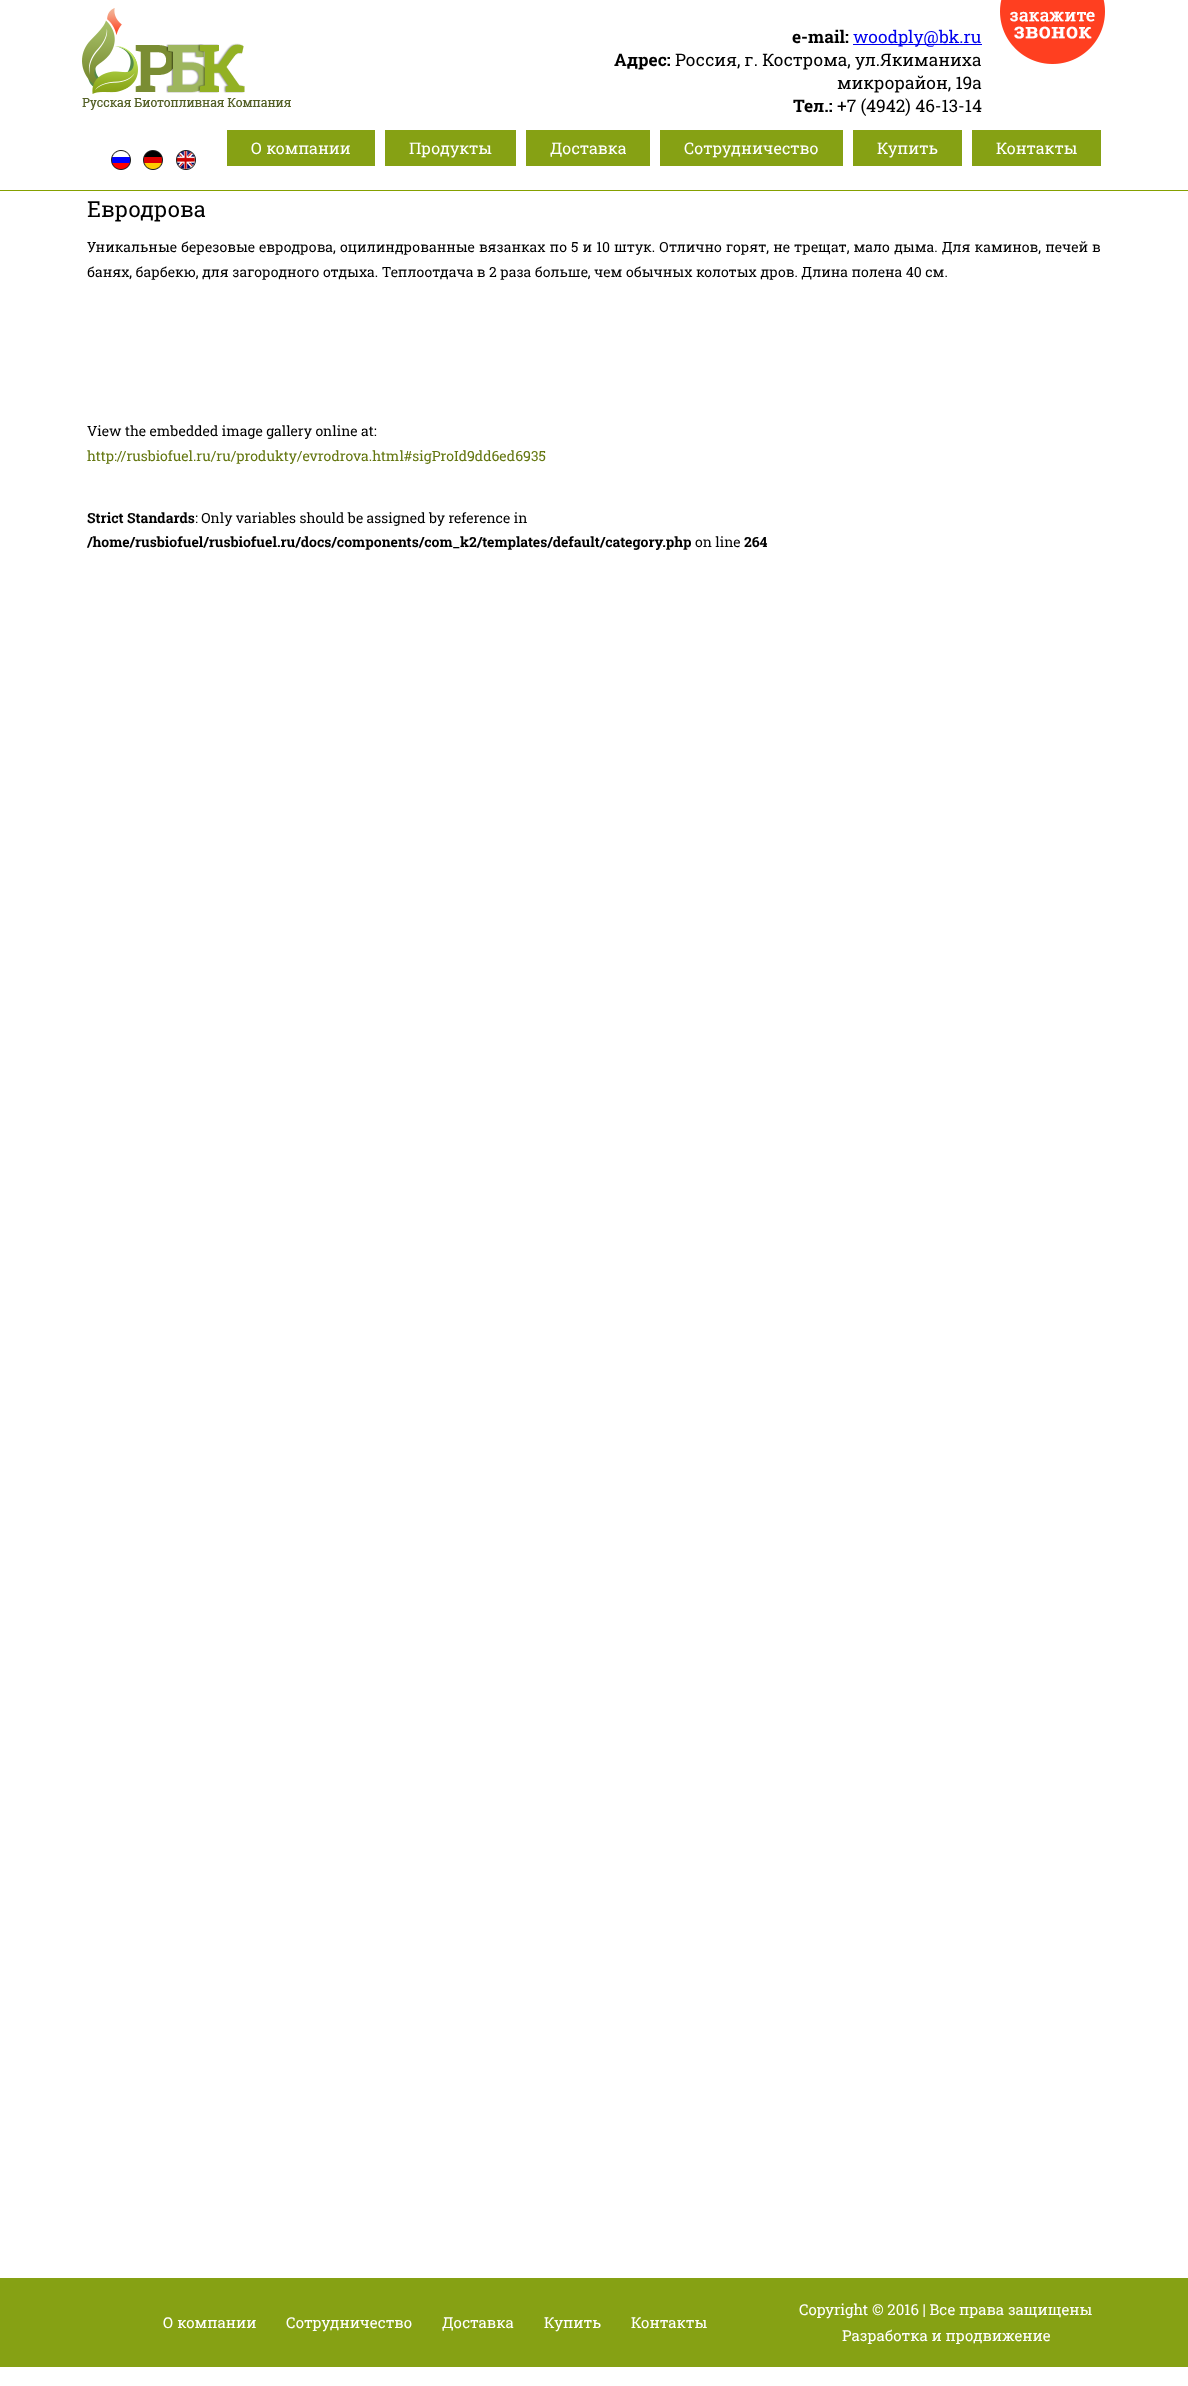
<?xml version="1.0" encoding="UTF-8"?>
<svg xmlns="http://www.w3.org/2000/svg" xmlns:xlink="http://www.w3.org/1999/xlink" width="1188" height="2386">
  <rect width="100%" height="100%" fill="#ffffff" />
  <image x="82" y="8" width="209" height="102" xlink:href="image1.png" />
  <rect x="853" y="44" width="129" height="1" fill="#0000ee" />
  <image x="1000" y="0" width="105" height="64" xlink:href="image2.png" />
  <image x="111" y="150" width="20" height="20" xlink:href="image3.png" />
  <image x="143" y="150" width="20" height="20" xlink:href="image4.png" />
  <image x="176" y="150" width="20" height="20" xlink:href="image5.png" />
  <rect x="227" y="130" width="148" height="36" fill="#86a114" />
  <rect x="385" y="130" width="131" height="36" fill="#86a114" />
  <rect x="526" y="130" width="124" height="36" fill="#86a114" />
  <rect x="660" y="130" width="183" height="36" fill="#86a114" />
  <rect x="853" y="130" width="109" height="36" fill="#86a114" />
  <rect x="972" y="130" width="129" height="36" fill="#86a114" />
  <rect y="190" width="1188" height="1" fill="#85a000" />
  <rect y="2278" width="1188" height="89" fill="#86a114" />
  <text x="792" y="43" style="font-family: Roboto Slab; font-size: 17.3px; font-weight: bold; fill: #000000">e-mail:</text>
  <text x="853" y="43" style="font-family: Roboto Slab; font-size: 17.3px; fill: #0000ee">woodply@bk.ru</text>
  <text x="614" y="66" style="font-family: Roboto Slab; font-size: 17.3px; font-weight: bold; fill: #000000">Адрес:</text>
  <text x="675" y="66" style="font-family: Roboto Slab; font-size: 17.3px; fill: #000000">Россия, г. Кострома, ул.Якиманиха</text>
  <text x="837" y="89" style="font-family: Roboto Slab; font-size: 17.3px; fill: #000000">микрорайон, 19а</text>
  <text x="793" y="112" style="font-family: Roboto Slab; font-size: 17.3px; font-weight: bold; fill: #000000">Тел.:</text>
  <text x="837" y="112" style="font-family: Roboto Slab; font-size: 17.3px; fill: #000000">+7 (4942) 46-13-14</text>
  <text x="251" y="154" style="font-family: Roboto Slab; font-size: 16px; fill: #ffffff">О компании</text>
  <text x="409" y="154" style="font-family: Roboto Slab; font-size: 16px; fill: #ffffff">Продукты</text>
  <text x="550" y="154" style="font-family: Roboto Slab; font-size: 16px; fill: #ffffff">Доставка</text>
  <text x="684" y="154" style="font-family: Roboto Slab; font-size: 16px; fill: #ffffff">Сотрудничество</text>
  <text x="877" y="154" style="font-family: Roboto Slab; font-size: 16px; fill: #ffffff">Купить</text>
  <text x="996" y="154" style="font-family: Roboto Slab; font-size: 16px; fill: #ffffff">Контакты</text>
  <text x="87" y="217" style="font-family: Roboto Slab; font-size: 22px; fill: #000000">Евродрова</text>
  <text x="87" y="252" word-spacing="0.6" style="font-family: Roboto Slab; font-size: 14px; fill: #000000">Уникальные березовые евродрова, оцилиндрованные вязанках по 5 и 10 штук. Отлично горят, не трещат, мало дыма. Для каминов, печей в</text>
  <text x="87" y="277" style="font-family: Roboto Slab; font-size: 14px; fill: #000000">банях, барбекю, для загородного отдыха. Теплоотдача в 2 раза больше, чем обычных колотых дров. Длина полена 40 см.</text>
  <text x="87" y="436" style="font-family: Roboto Slab; font-size: 14px; fill: #000000">View the embedded image gallery online at:</text>
  <text x="87" y="461" style="font-family: Roboto Slab; font-size: 14px; fill: #63760f">http://rusbiofuel.ru/ru/produkty/evrodrova.html#sigProId9dd6ed6935</text>
  <text x="87" y="523" style="font-family: Roboto Slab; font-size: 14px; font-weight: bold; fill: #000000">Strict Standards</text>
  <text x="195" y="523" style="font-family: Roboto Slab; font-size: 14px; fill: #000000">: Only variables should be assigned by reference in</text>
  <text x="87" y="547" style="font-family: Roboto Slab; font-size: 14px; font-weight: bold; fill: #000000">/home/rusbiofuel/rusbiofuel.ru/docs/components/com_k2/templates/default/category.php</text>
  <text x="695" y="547" style="font-family: Roboto Slab; font-size: 14px; fill: #000000">on line</text>
  <text x="744" y="547" style="font-family: Roboto Slab; font-size: 14px; font-weight: bold; fill: #000000">264</text>
  <text x="163" y="2328" style="font-family: Roboto Slab; font-size: 15px; fill: #ffffff">О компании</text>
  <text x="286" y="2328" style="font-family: Roboto Slab; font-size: 15px; fill: #ffffff">Сотрудничество</text>
  <text x="442" y="2328" style="font-family: Roboto Slab; font-size: 15px; fill: #ffffff">Доставка</text>
  <text x="544" y="2328" style="font-family: Roboto Slab; font-size: 15px; fill: #ffffff">Купить</text>
  <text x="631" y="2328" style="font-family: Roboto Slab; font-size: 15px; fill: #ffffff">Контакты</text>
  <text x="799" y="2315" style="font-family: Roboto Slab; font-size: 15px; fill: #ffffff">Copyright © 2016 | Все права защищены</text>
  <text x="842" y="2341" style="font-family: Roboto Slab; font-size: 15px; fill: #ffffff">Разработка и продвижение</text>
</svg>
